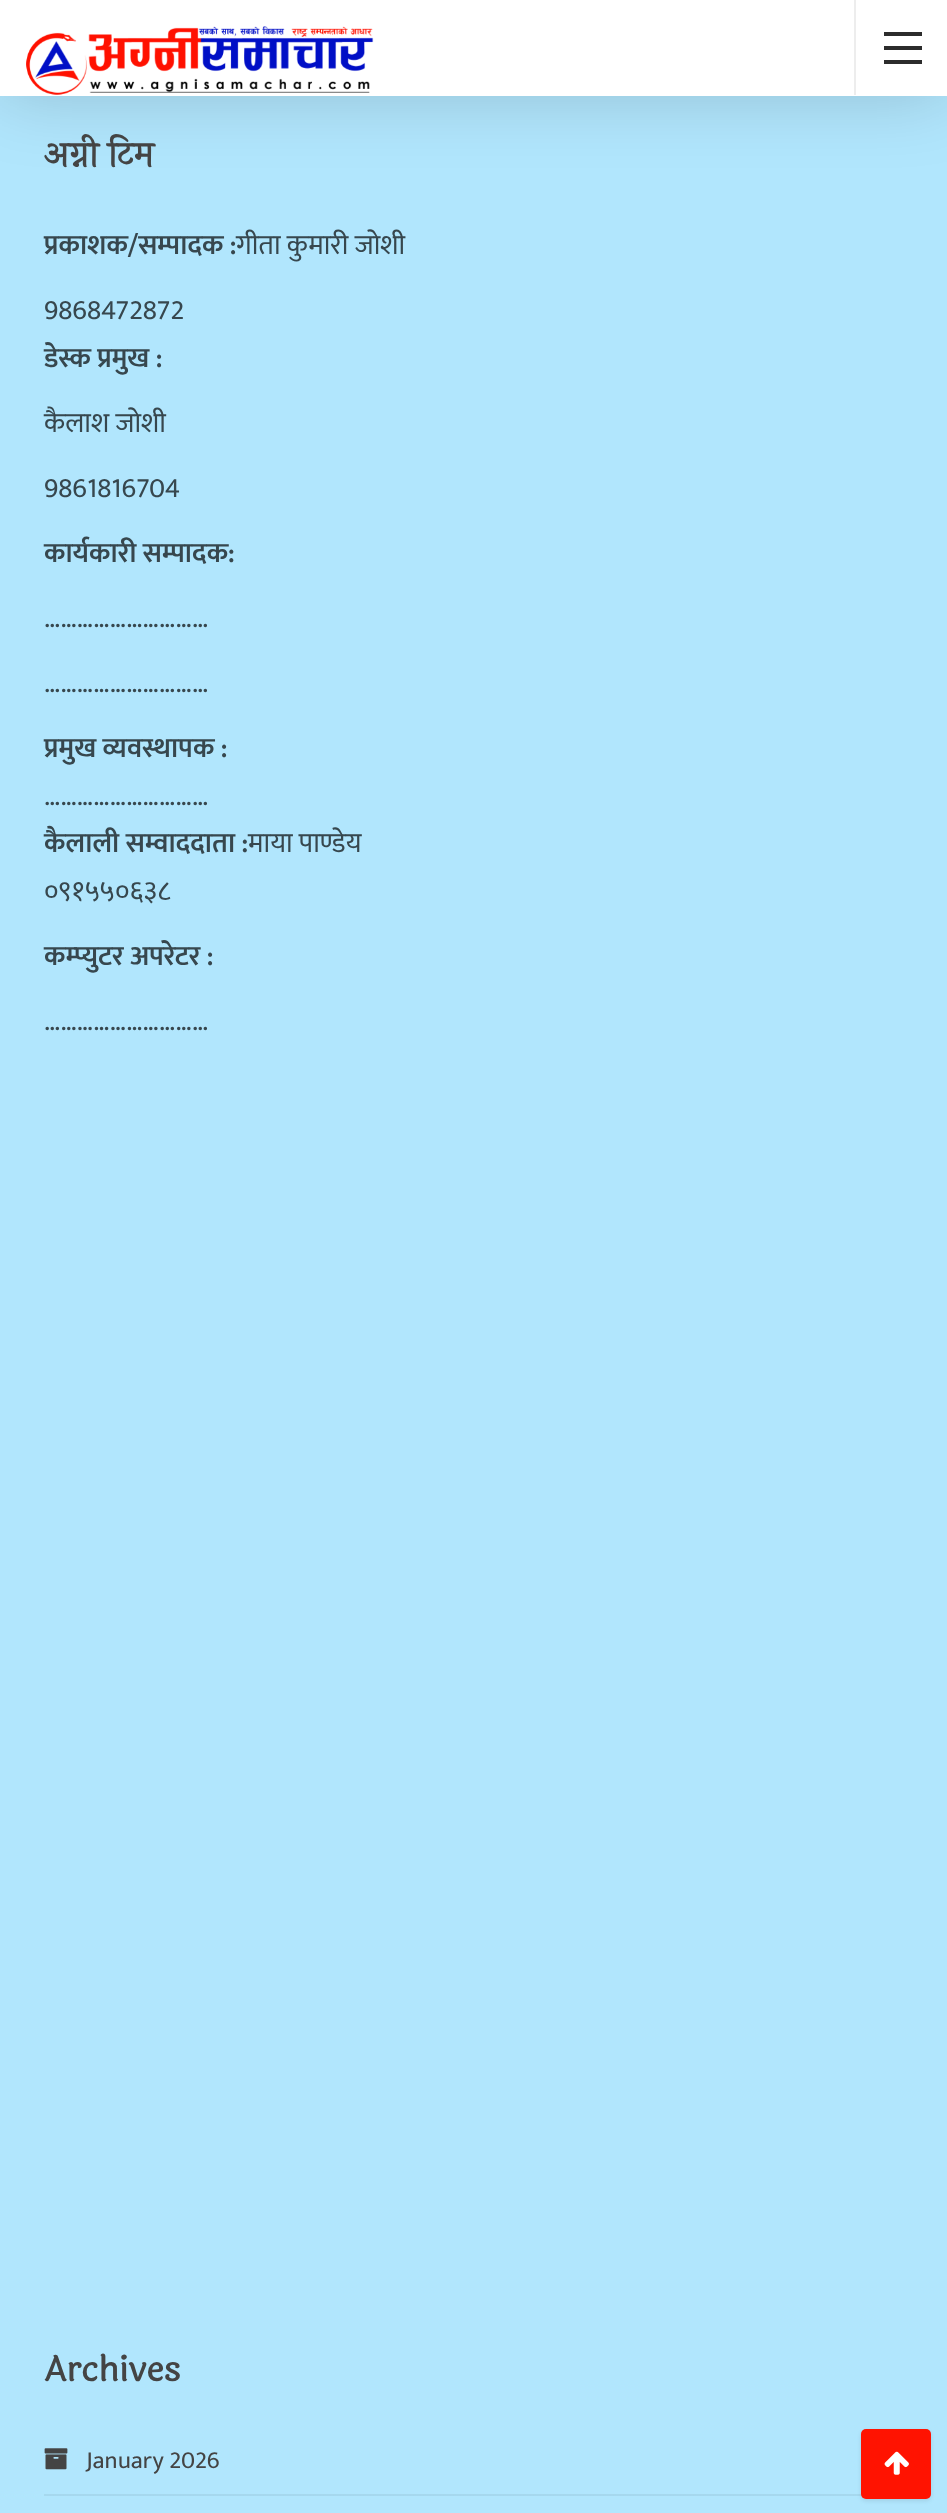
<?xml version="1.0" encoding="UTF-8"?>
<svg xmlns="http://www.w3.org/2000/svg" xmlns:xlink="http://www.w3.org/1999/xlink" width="947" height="2513">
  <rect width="100%" height="100%" fill="#b1e6fd" />
  <rect width="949" height="96" fill="#000000" fill-opacity="0.17" filter="blur(35px)" />
  <rect width="947" height="96" fill="#ffffff" />
  <image x="26" y="26" width="348" height="69" xlink:href="image1.png" />
  <rect x="854" width="2" height="95" fill="#ededed" />
  <rect x="884" y="46" width="38" height="4" fill="#2c2c2c" />
  <rect x="884" y="32" width="38" height="4" fill="#2c2c2c" />
  <rect x="884" y="60" width="38" height="4" fill="#2c2c2c" />
  <rect x="44" y="2494" width="818" height="2" fill="#a6d8ee" />
  <image x="44" y="2448" width="24" height="22" xlink:href="image2.png" />
  <rect x="861" y="2431" width="70" height="70" rx="5" fill="#000000" fill-opacity="0.09" filter="blur(2px)" />
  <rect x="861" y="2429" width="70" height="70" rx="5" fill="#ff1301" />
  <image x="884" y="2451" width="25" height="24" xlink:href="image3.png" />
  <text x="44" y="167" style="font-family: Laila; font-size: 35px; font-weight: bold; fill: #444444">अग्नी टिम</text>
  <text x="44" y="254" style="font-family: Mukta; font-size: 28px; font-weight: 600; fill: #37474e">प्रकाशक/सम्पादक :</text>
  <text x="236" y="254" style="font-family: Mukta; font-size: 28px; fill: #37474e">गीता कुमारी जोशी</text>
  <text x="44" y="319" style="font-family: Mukta; font-size: 28px; fill: #37474e">9868472872</text>
  <text x="44" y="367" style="font-family: Mukta; font-size: 28px; font-weight: 600; fill: #37474e">डेस्क प्रमुख :</text>
  <text x="44" y="432" style="font-family: Mukta; font-size: 28px; fill: #37474e">कैलाश जोशी</text>
  <text x="44" y="497" style="font-family: Mukta; font-size: 28px; fill: #37474e">9861816704</text>
  <text x="44" y="562" style="font-family: Mukta; font-size: 28px; font-weight: 600; fill: #37474e">कार्यकारी सम्पादक:</text>
  <text x="44" y="627" style="font-family: Mukta; font-size: 28px; fill: #37474e">…………………………</text>
  <text x="44" y="692" style="font-family: Mukta; font-size: 28px; fill: #37474e">…………………………</text>
  <text x="44" y="757" style="font-family: Mukta; font-size: 28px; font-weight: 600; fill: #37474e">प्रमुख व्यवस्थापक :</text>
  <text x="44" y="805" style="font-family: Mukta; font-size: 28px; fill: #37474e">…………………………</text>
  <text x="44" y="852" style="font-family: Mukta; font-size: 28px; font-weight: 600; fill: #37474e">कैलाली सम्वाददाता :</text>
  <text x="248" y="852" style="font-family: Mukta; font-size: 28px; fill: #37474e">माया पाण्डेय</text>
  <text x="44" y="900" style="font-family: Mukta; font-size: 28px; fill: #37474e">०९१५५०६३८</text>
  <text x="44" y="965" style="font-family: Mukta; font-size: 28px; font-weight: 600; fill: #37474e">कम्प्युटर अपरेटर :</text>
  <text x="44" y="1030" style="font-family: Mukta; font-size: 28px; fill: #37474e">…………………………</text>
  <text x="44" y="2381" style="font-family: Laila; font-size: 35px; font-weight: bold; fill: #444444">Archives</text>
  <text x="86" y="2468" style="font-family: Mukta; font-size: 24.5px; fill: #444444">January 2026</text>
</svg>
